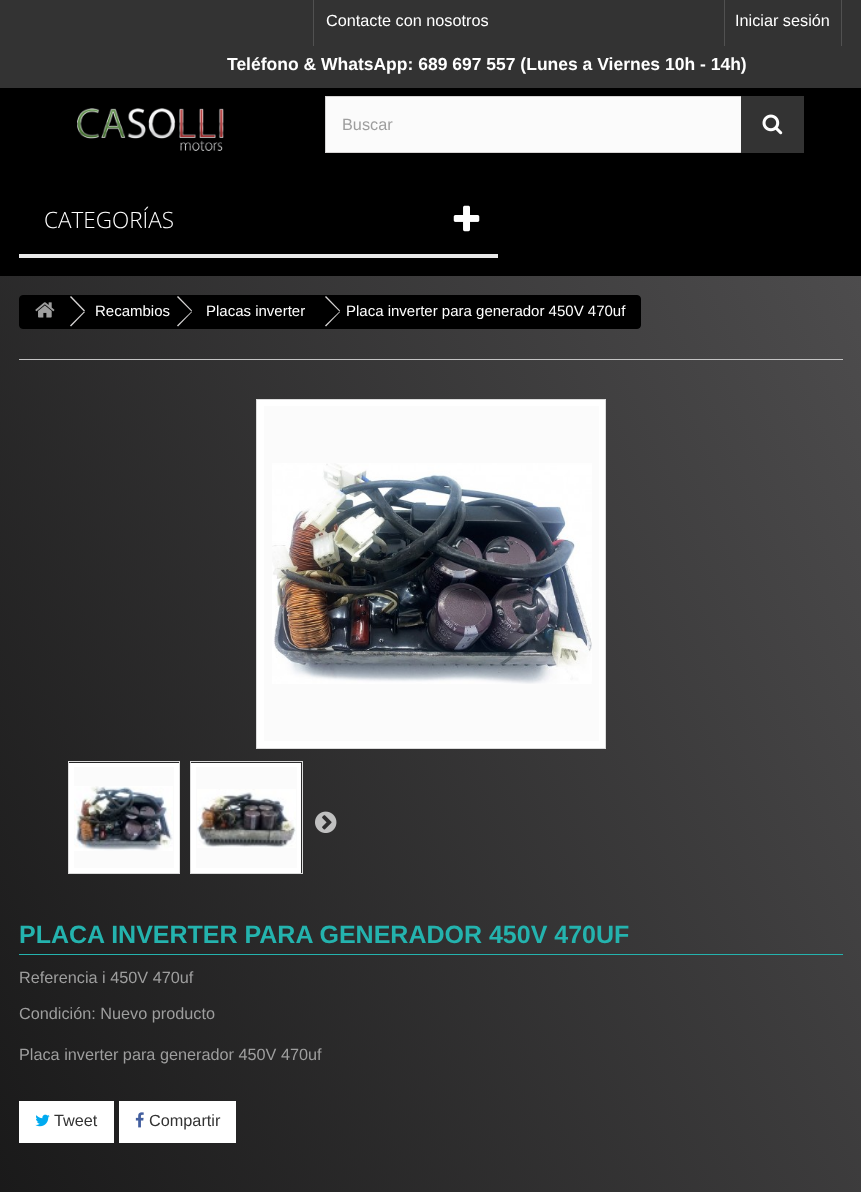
<?xml version="1.0" encoding="UTF-8"?>
<svg xmlns="http://www.w3.org/2000/svg" xmlns:xlink="http://www.w3.org/1999/xlink" width="861" height="1192">
  <defs>
    <linearGradient id="g1" gradientUnits="userSpaceOnUse" x1="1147" y1="913" x2="-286" y2="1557"><stop offset="0" stop-color="#4d4c4d" /><stop offset="1" stop-color="#080808" /></linearGradient>
  </defs>
  <rect width="100%" height="100%" fill="#ffffff" />
  <rect y="88" width="861" height="188" fill="#000000" />
  <rect width="861" height="88" fill="#333333" />
  <rect x="313" width="1" height="46" fill="#515151" />
  <rect x="841" width="1" height="46" fill="#515151" />
  <rect x="724" width="1" height="46" fill="#515151" />
  <image x="77" y="108" width="147" height="43" xlink:href="image1.png" />
  <rect x="326" y="97" width="415" height="55" fill="#fbfbfb" />
  <rect x="325.5" y="96.5" width="478" height="56" fill="none" stroke="#d6d4d4" />
  <rect x="741" y="96" width="63" height="57" fill="#333333" />
  <image x="762" y="114" width="21" height="21" xlink:href="image2.png" />
  <rect x="19" y="254" width="479" height="4" fill="#e9e9e9" />
  <image x="453" y="205" width="27" height="27" xlink:href="image3.png" />
  <rect y="276" width="861" height="916" fill="url(#g1)" />
  <rect x="19.5" y="295.5" width="621" height="33" rx="3.5" fill="#000000" stroke="#000000" />
  <image x="35" y="302" width="20" height="16" xlink:href="image4.png" />
  <path d="M 71 296 l 14 14.5 l -1 1 l -14 -14.5 z" fill="#d6d4d4" />
  <path d="M 84 311.5 l 1 0.5 l -14 14.5 l -1 -1 z" fill="#d6d4d4" />
  <path d="M 178 296 l 14 14.5 l -0.5 1 l -14.5 -14.5 z" fill="#d6d4d4" />
  <path d="M 191.5 311.5 l 0.5 0.5 l -14 14.5 l -1 -1 z" fill="#d6d4d4" />
  <path d="M 326 296 l 14 14.5 l -0.5 1 l -14.5 -14.5 z" fill="#d6d4d4" />
  <path d="M 339.5 311.5 l 0.5 0.5 l -14 14.5 l -1 -1 z" fill="#d6d4d4" />
  <rect x="19" y="359" width="824" height="1" fill="#c4c4c4" />
  <rect x="256.5" y="399.5" width="349" height="349" fill="#ffffff" stroke="#dbdbdb" />
  <rect x="264" y="406" width="335" height="335" fill="#fbfbfb" />
  <image x="272" y="463" width="320" height="221" xlink:href="image5.png" />
  <rect x="68.5" y="761.5" width="111" height="112" fill="none" stroke="#dbdbdb" />
  <rect x="74" y="767" width="100" height="101" fill="#fbfbfb" />
  <rect x="71" y="765" width="106" height="106" fill="none" stroke="#ffffff" stroke-width="4" />
  <rect x="73.5" y="766.5" width="101" height="102" fill="none" stroke="#ffffff" />
  <image x="74" y="786" width="99" height="65" xlink:href="image6.png" />
  <rect x="190.5" y="761.5" width="112" height="112" fill="none" stroke="#dbdbdb" />
  <rect x="196" y="767" width="101" height="101" fill="#fbfbfb" />
  <rect x="193" y="765" width="106" height="106" fill="none" stroke="#ffffff" stroke-width="4" />
  <rect x="195.5" y="766.5" width="102" height="102" fill="none" stroke="#ffffff" />
  <image x="197" y="789" width="99" height="59" xlink:href="image7.png" />
  <image x="315" y="811" width="22" height="22" xlink:href="image8.png" />
  <rect x="19" y="954" width="824" height="1" fill="#24b3ae" />
  <rect x="19" y="1101" width="95" height="42" fill="#ffffff" />
  <image x="35" y="1114" width="15" height="13" xlink:href="image9.png" />
  <rect x="119" y="1101" width="117" height="42" fill="#ffffff" />
  <image x="135" y="1112" width="9" height="16" xlink:href="image10.png" />
  <text x="326" y="26" style="font-family: Liberation Sans; font-size: 16.25px; fill: #ffffff">Contacte con nosotros</text>
  <text x="735" y="26" style="font-family: Liberation Sans; font-size: 16.25px; fill: #ffffff">Iniciar sesión</text>
  <text x="227" y="70" style="font-family: Liberation Sans; font-size: 17.5px; font-weight: bold; fill: #ffffff">Teléfono &amp; WhatsApp: 689 697 557 (Lunes a Viernes 10h - 14h)</text>
  <text x="342" y="130" style="font-family: Liberation Sans; font-size: 16.25px; fill: #9e9e9e">Buscar</text>
  <text x="44" y="228" style="font-family: Open Sans; font-size: 22.5px; font-weight: 300; fill: #ffffff">CATEGORÍAS</text>
  <text x="95" y="316" style="font-family: Liberation Sans; font-size: 15px; fill: #ffffff">Recambios</text>
  <text x="206" y="316" style="font-family: Liberation Sans; font-size: 15px; fill: #ffffff">Placas inverter</text>
  <text x="346" y="316" style="font-family: Liberation Sans; font-size: 15px; fill: #ffffff">Placa inverter para generador 450V 470uf</text>
  <text x="19" y="943" style="font-family: Liberation Sans; font-size: 25px; font-weight: bold; fill: #24b3ae">PLACA INVERTER PARA GENERADOR 450V 470UF</text>
  <text x="19" y="983" style="font-family: Liberation Sans; font-size: 16.25px; fill: #9e9e9e">Referencia i 450V 470uf</text>
  <text x="19" y="1019" style="font-family: Liberation Sans; font-size: 16.25px; fill: #9e9e9e">Condición: Nuevo producto</text>
  <text x="19" y="1060" style="font-family: Liberation Sans; font-size: 16.25px; fill: #9e9e9e">Placa inverter para generador 450V 470uf</text>
  <text x="54" y="1126" style="font-family: Liberation Sans; font-size: 16.25px; fill: #333333">Tweet</text>
  <text x="149" y="1126" style="font-family: Liberation Sans; font-size: 16.25px; fill: #333333">Compartir</text>
</svg>
